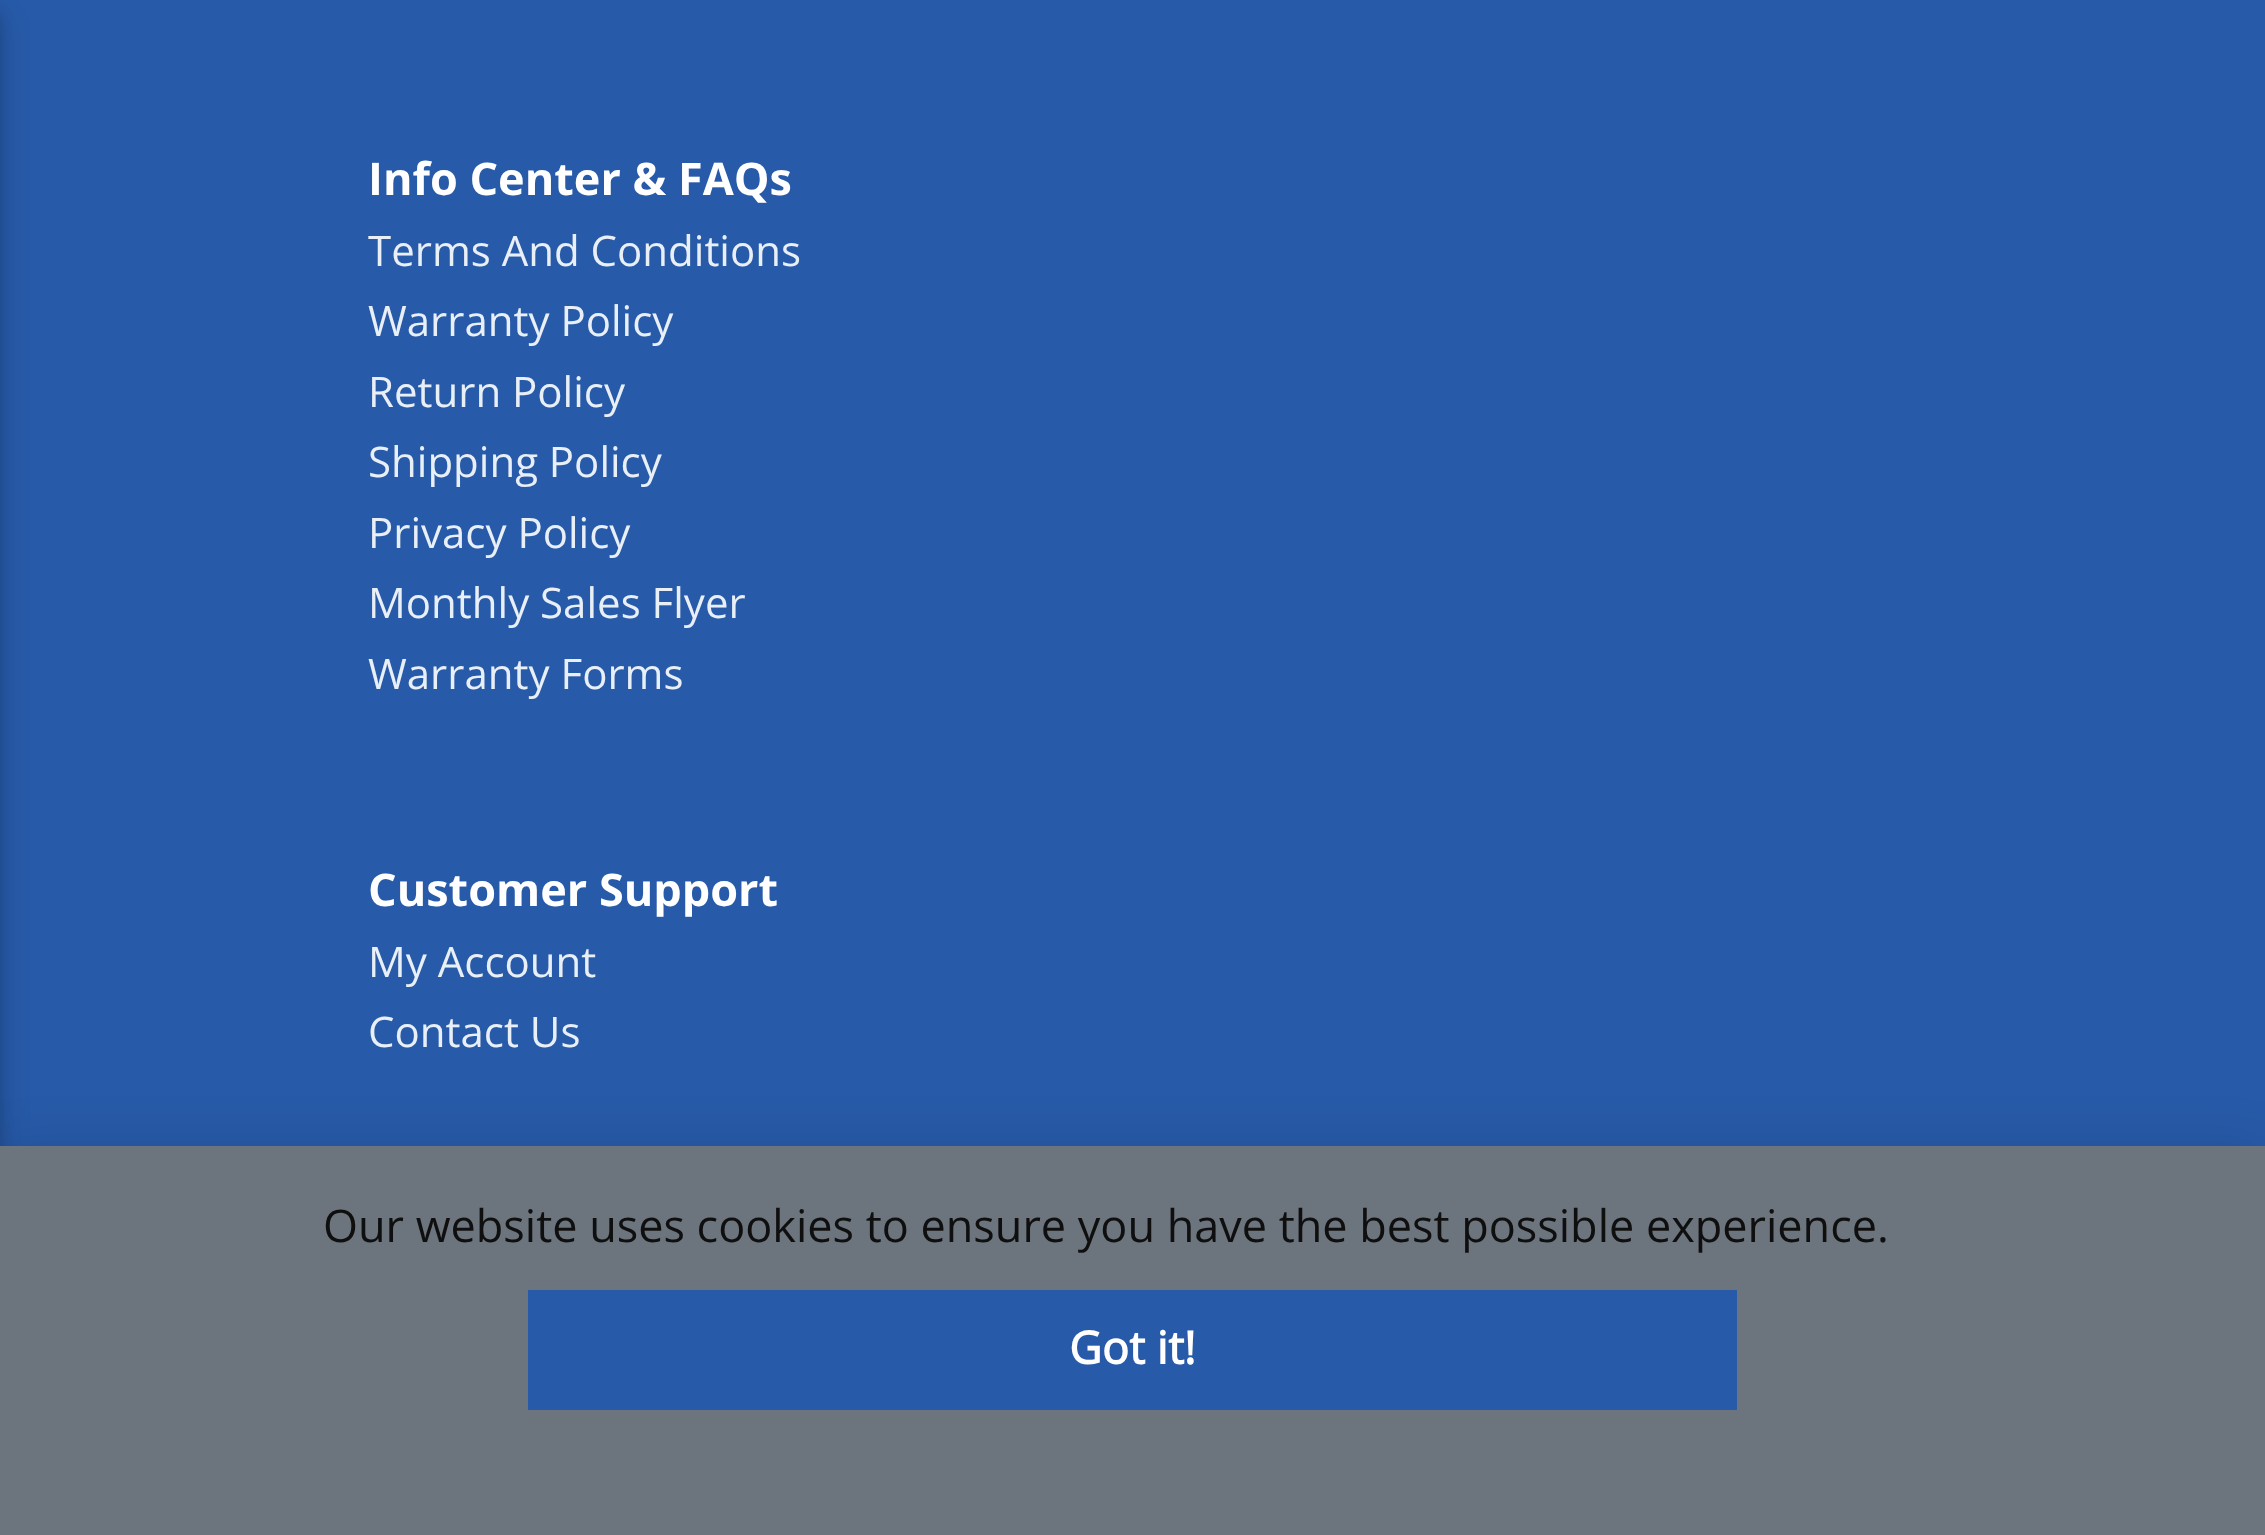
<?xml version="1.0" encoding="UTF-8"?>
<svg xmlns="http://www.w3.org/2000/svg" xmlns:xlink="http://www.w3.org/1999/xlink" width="2265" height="1535">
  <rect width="100%" height="100%" fill="#275aa8" />
  <rect x="-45" y="18" width="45" height="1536" fill="#000000" fill-opacity="0.14" filter="blur(15px)" />
  <rect x="-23" y="12" width="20" height="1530" fill="#000000" fill-opacity="0.2" filter="blur(7.5px)" />
  <rect y="1149" width="2265" height="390" fill="#000000" fill-opacity="0.12" filter="blur(27px)" />
  <rect y="1146" width="2265" height="389" fill="#6c757d" />
  <rect x="528" y="1290" width="1209" height="120" fill="#275aa8" />
  <text x="368" y="195" style="font-family: Open Sans; font-size: 45px; font-weight: bold; fill: #ffffff">Info Center &amp; FAQs</text>
  <text x="368" y="266" style="font-family: Open Sans; font-size: 42px; fill: #e9eff6">Terms And Conditions</text>
  <text x="368" y="336" style="font-family: Open Sans; font-size: 42px; fill: #e9eff6">Warranty Policy</text>
  <text x="368" y="407" style="font-family: Open Sans; font-size: 42px; fill: #e9eff6">Return Policy</text>
  <text x="368" y="477" style="font-family: Open Sans; font-size: 42px; fill: #e9eff6">Shipping Policy</text>
  <text x="368" y="548" style="font-family: Open Sans; font-size: 42px; fill: #e9eff6">Privacy Policy</text>
  <text x="368" y="618" style="font-family: Open Sans; font-size: 42px; fill: #e9eff6">Monthly Sales Flyer</text>
  <text x="368" y="689" style="font-family: Open Sans; font-size: 42px; fill: #e9eff6">Warranty Forms</text>
  <text x="368" y="906" style="font-family: Open Sans; font-size: 45px; font-weight: bold; fill: #ffffff">Customer Support</text>
  <text x="368" y="977" style="font-family: Open Sans; font-size: 42px; fill: #e9eff6">My Account</text>
  <text x="368" y="1047" style="font-family: Open Sans; font-size: 42px; fill: #e9eff6">Contact Us</text>
  <text x="323" y="1242" style="font-family: Open Sans; font-size: 45px; fill: #0f0f0f">Our website uses cookies to ensure you have the best possible experience.</text>
  <text x="1069" y="1364" style="font-family: 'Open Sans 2'; font-size: 45px; font-weight: bold; fill: #ffffff">Got it!</text>
</svg>
